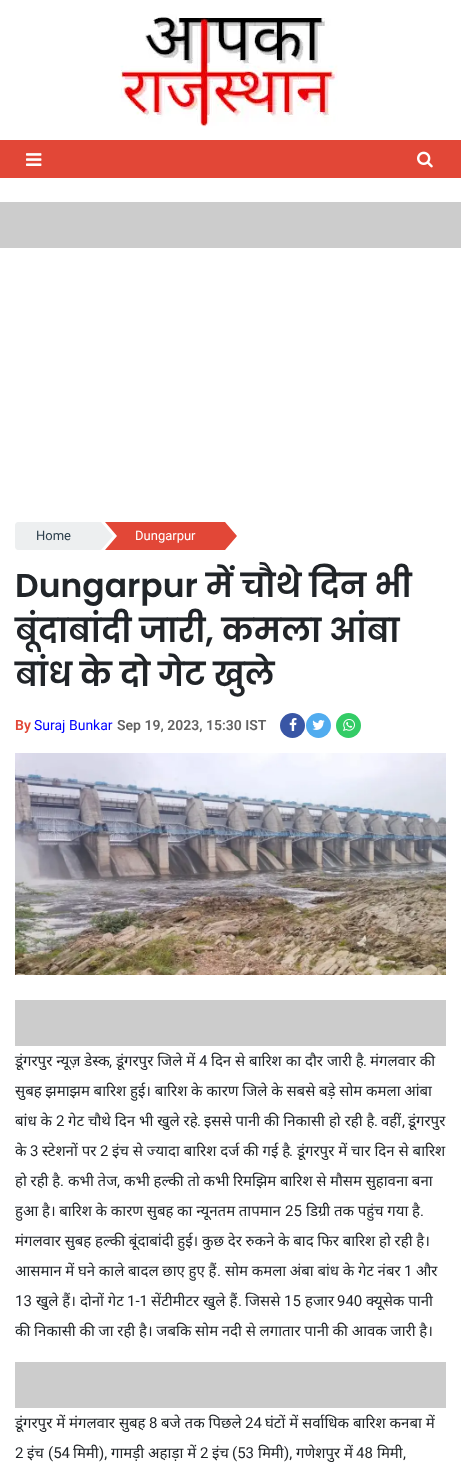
<?xml version="1.0" encoding="UTF-8"?>
<svg xmlns="http://www.w3.org/2000/svg" xmlns:xlink="http://www.w3.org/1999/xlink" width="461" height="1478">
  <rect width="100%" height="100%" fill="#ffffff" />
  <image x="118" y="14" width="220" height="116" xlink:href="image1.png" />
  <rect y="140" width="461" height="38" fill="#e24737" />
  <image x="26" y="153" width="16" height="13" xlink:href="image2.png" />
  <image x="417" y="151" width="16" height="17" xlink:href="image3.png" />
  <rect y="202" width="461" height="46" fill="#cccccc" />
  <path d="M 18 522 h 83 v 28 h -83 c -1.5 0 -3 -1.5 -3 -3 v -22 c 0 -1.5 1.5 -3 3 -3 z" fill="#edeff0" />
  <rect x="105" y="522" width="120" height="28" fill="#e24737" />
  <path d="M 105 550 v -28 l 12 14 z" fill="#ffffff" />
  <path d="M 101 550 v -28 l 12 14 z" fill="#edeff0" />
  <path d="M 225 550 v -28 l 12 14 z" fill="#e24737" />
  <circle cx="292.5" cy="725.5" r="12.5" fill="#3956a5" />
  <image x="289" y="718" width="8" height="13" xlink:href="image4.png" />
  <circle cx="318.5" cy="725.5" r="12.5" fill="#51acef" />
  <image x="312" y="720" width="13" height="10" xlink:href="image5.png" />
  <circle cx="348.5" cy="725.5" r="12.5" fill="#33cc66" />
  <image x="343" y="719" width="12" height="12" xlink:href="image6.png" />
  <image x="15" y="753" width="431" height="222" xlink:href="image7.png" />
  <rect x="15" y="1000" width="431" height="46" fill="#cccccc" />
  <rect x="15" y="1362" width="431" height="46" fill="#cccccc" />
  <text x="36" y="540" style="font-family: Roboto; font-size: 13px; fill: #2c3f4c">Home</text>
  <text x="135" y="540" style="font-family: Roboto; font-size: 13px; fill: #ffffff">Dungarpur</text>
  <text x="15" y="597" style="font-family: Poppins; font-size: 33px; font-weight: 600; fill: #212529">Dungarpur में चौथे दिन भी</text>
  <text x="15" y="642" style="font-family: Poppins; font-size: 33px; font-weight: 600; fill: #212529">बूंदाबांदी जारी, कमला आंबा</text>
  <text x="15" y="686" style="font-family: Poppins; font-size: 33px; font-weight: 600; fill: #212529">बांध के दो गेट खुले</text>
  <text x="15" y="730" style="font-family: Roboto; font-size: 14px; font-weight: 600; fill: #e24737">By</text>
  <text x="34" y="730" style="font-family: Roboto; font-size: 14px; fill: #0000ff">Suraj Bunkar</text>
  <text x="117" y="730" style="font-family: Roboto; font-size: 14px; font-weight: 600; fill: #626262">Sep 19, 2023, 15:30 IST</text>
  <text x="15" y="1066" style="font-family: Noto Sans; font-size: 15px; fill: #212529">डूंगरपुर न्यूज़ डेस्क</text>
  <text x="199" y="1066" style="font-family: Roboto; font-size: 15px; fill: #212529">4</text>
  <text x="211" y="1066" style="font-family: Noto Sans; font-size: 15px; fill: #212529">दिन से बारिश का दौर जारी है</text>
  <text x="370" y="1066" style="font-family: Noto Sans; font-size: 15px; fill: #212529">मंगलवार की</text>
  <text x="109" y="1066" style="font-family: Roboto; font-size: 15px; fill: #212529">,</text>
  <text x="116" y="1066" style="font-family: Noto Sans; font-size: 15px; fill: #212529">डूंगरपुर जिले में</text>
  <text x="363" y="1066" style="font-family: Roboto; font-size: 15px; fill: #212529">.</text>
  <text x="15" y="1096" word-spacing="-0.2" style="font-family: Noto Sans; font-size: 15px; fill: #212529">सुबह झमाझम बारिश हुई। बारिश के कारण जिले के सबसे बड़े सोम कमला आंबा</text>
  <text x="15" y="1126" style="font-family: Noto Sans; font-size: 15px; fill: #212529">बांध के</text>
  <text x="56" y="1126" style="font-family: Roboto; font-size: 15px; fill: #212529">2</text>
  <text x="68" y="1126" style="font-family: Noto Sans; font-size: 15px; fill: #212529">गेट चौथे दिन भी खुले रहे</text>
  <text x="197" y="1126" style="font-family: Roboto; font-size: 15px; fill: #212529">.</text>
  <text x="204" y="1126" style="font-family: Noto Sans; font-size: 15px; fill: #212529">इससे पानी की निकासी हो रही है</text>
  <text x="374" y="1126" style="font-family: Roboto; font-size: 15px; fill: #212529">.</text>
  <text x="381" y="1126" style="font-family: Noto Sans; font-size: 15px; fill: #212529">वहीं</text>
  <text x="402" y="1126" style="font-family: Roboto; font-size: 15px; fill: #212529">,</text>
  <text x="408" y="1126" style="font-family: Noto Sans; font-size: 15px; fill: #212529">डूंगरपुर</text>
  <text x="15" y="1156" style="font-family: Noto Sans; font-size: 15px; fill: #212529">के</text>
  <text x="30" y="1156" style="font-family: Roboto; font-size: 15px; fill: #212529">3</text>
  <text x="42" y="1156" style="font-family: Noto Sans; font-size: 15px; fill: #212529">स्टेशनों पर</text>
  <text x="100" y="1156" style="font-family: Roboto; font-size: 15px; fill: #212529">2</text>
  <text x="112" y="1156" style="font-family: Noto Sans; font-size: 15px; fill: #212529">इंच से ज्यादा बारिश दर्ज की गई है</text>
  <text x="289" y="1156" style="font-family: Roboto; font-size: 15px; fill: #212529">.</text>
  <text x="297" y="1156" style="font-family: Noto Sans; font-size: 15px; fill: #212529">डूंगरपुर में चार दिन से बारिश</text>
  <text x="15" y="1186" word-spacing="-0.25" style="font-family: Noto Sans; font-size: 15px; fill: #212529">हो रही है</text>
  <text x="60" y="1186" style="font-family: Roboto; font-size: 15px; fill: #212529">.</text>
  <text x="68" y="1186" word-spacing="-0.25" style="font-family: Noto Sans; font-size: 15px; fill: #212529">कभी तेज</text>
  <text x="117" y="1186" style="font-family: Roboto; font-size: 15px; fill: #212529">,</text>
  <text x="124" y="1186" word-spacing="-0.25" style="font-family: Noto Sans; font-size: 15px; fill: #212529">कभी हल्की तो कभी रिमझिम बारिश से मौसम सुहावना बना</text>
  <text x="15" y="1216" word-spacing="-0.25" style="font-family: Noto Sans; font-size: 15px; fill: #212529">हुआ है। बारिश के कारण सुबह का न्यूनतम तापमान</text>
  <text x="285" y="1216" style="font-family: Roboto; font-size: 15px; fill: #212529">25</text>
  <text x="306" y="1216" word-spacing="-0.25" style="font-family: Noto Sans; font-size: 15px; fill: #212529">डिग्री तक पहुंच गया है</text>
  <text x="420" y="1216" style="font-family: Roboto; font-size: 15px; fill: #212529">.</text>
  <text x="15" y="1246" word-spacing="-0.2" style="font-family: Noto Sans; font-size: 15px; fill: #212529">मंगलवार सुबह हल्की बूंदाबांदी हुई। कुछ देर रुकने के बाद फिर बारिश हो रही है।</text>
  <text x="15" y="1276" word-spacing="-0.25" style="font-family: Noto Sans; font-size: 15px; fill: #212529">आसमान में घने काले बादल छाए हुए हैं</text>
  <text x="217" y="1276" style="font-family: Roboto; font-size: 15px; fill: #212529">.</text>
  <text x="225" y="1276" word-spacing="-0.25" style="font-family: Noto Sans; font-size: 15px; fill: #212529">सोम कमला अंबा बांध के गेट नंबर</text>
  <text x="404" y="1276" style="font-family: Roboto; font-size: 15px; fill: #212529">1</text>
  <text x="416" y="1276" style="font-family: Noto Sans; font-size: 15px; fill: #212529">और</text>
  <text x="15" y="1306" style="font-family: Roboto; font-size: 15px; fill: #212529">13</text>
  <text x="36" y="1306" style="font-family: Noto Sans; font-size: 15px; fill: #212529">खुले हैं। दोनों गेट</text>
  <text x="127" y="1306" style="font-family: Roboto; font-size: 15px; fill: #212529">1-1</text>
  <text x="151" y="1306" style="font-family: Noto Sans; font-size: 15px; fill: #212529">सेंटीमीटर खुले हैं</text>
  <text x="238" y="1306" style="font-family: Roboto; font-size: 15px; fill: #212529">.</text>
  <text x="245" y="1306" style="font-family: Noto Sans; font-size: 15px; fill: #212529">जिससे</text>
  <text x="284" y="1306" style="font-family: Roboto; font-size: 15px; fill: #212529">15</text>
  <text x="305" y="1306" style="font-family: Noto Sans; font-size: 15px; fill: #212529">हजार</text>
  <text x="337" y="1306" style="font-family: Roboto; font-size: 15px; fill: #212529">940</text>
  <text x="366" y="1306" style="font-family: Noto Sans; font-size: 15px; fill: #212529">क्यूसेक पानी</text>
  <text x="15" y="1336" word-spacing="-0.2" style="font-family: Noto Sans; font-size: 15px; fill: #212529">की निकासी की जा रही है। जबकि सोम नदी से लगातार पानी की आवक जारी है।</text>
  <text x="15" y="1428" style="font-family: Noto Sans; font-size: 15px; fill: #212529">डूंगरपुर में मंगलवार सुबह</text>
  <text x="149" y="1428" style="font-family: Roboto; font-size: 15px; fill: #212529">8</text>
  <text x="161" y="1428" style="font-family: Noto Sans; font-size: 15px; fill: #212529">बजे तक पिछले</text>
  <text x="245" y="1428" style="font-family: Roboto; font-size: 15px; fill: #212529">24</text>
  <text x="265" y="1428" style="font-family: Noto Sans; font-size: 15px; fill: #212529">घंटों में सर्वाधिक बारिश कनबा में</text>
  <text x="15" y="1458" style="font-family: Roboto; font-size: 15px; fill: #212529">2</text>
  <text x="27" y="1458" style="font-family: Noto Sans; font-size: 15px; fill: #212529">इंच</text>
  <text x="48" y="1458" style="font-family: Roboto; font-size: 15px; fill: #212529">(54</text>
  <text x="73" y="1458" style="font-family: Noto Sans; font-size: 15px; fill: #212529">मिमी</text>
  <text x="99" y="1458" style="font-family: Roboto; font-size: 15px; fill: #212529">),</text>
  <text x="111" y="1458" style="font-family: Noto Sans; font-size: 15px; fill: #212529">गामड़ी अहाड़ा में</text>
  <text x="200" y="1458" style="font-family: Roboto; font-size: 15px; fill: #212529">2</text>
  <text x="212" y="1458" style="font-family: Noto Sans; font-size: 15px; fill: #212529">इंच</text>
  <text x="232" y="1458" style="font-family: Roboto; font-size: 15px; fill: #212529">(53</text>
  <text x="258" y="1458" style="font-family: Noto Sans; font-size: 15px; fill: #212529">मिमी</text>
  <text x="284" y="1458" style="font-family: Roboto; font-size: 15px; fill: #212529">),</text>
  <text x="296" y="1458" style="font-family: Noto Sans; font-size: 15px; fill: #212529">गणेशपुर में</text>
  <text x="356" y="1458" style="font-family: Roboto; font-size: 15px; fill: #212529">48</text>
  <text x="377" y="1458" style="font-family: Noto Sans; font-size: 15px; fill: #212529">मिमी</text>
  <text x="403" y="1458" style="font-family: Roboto; font-size: 15px; fill: #212529">,</text>
</svg>
